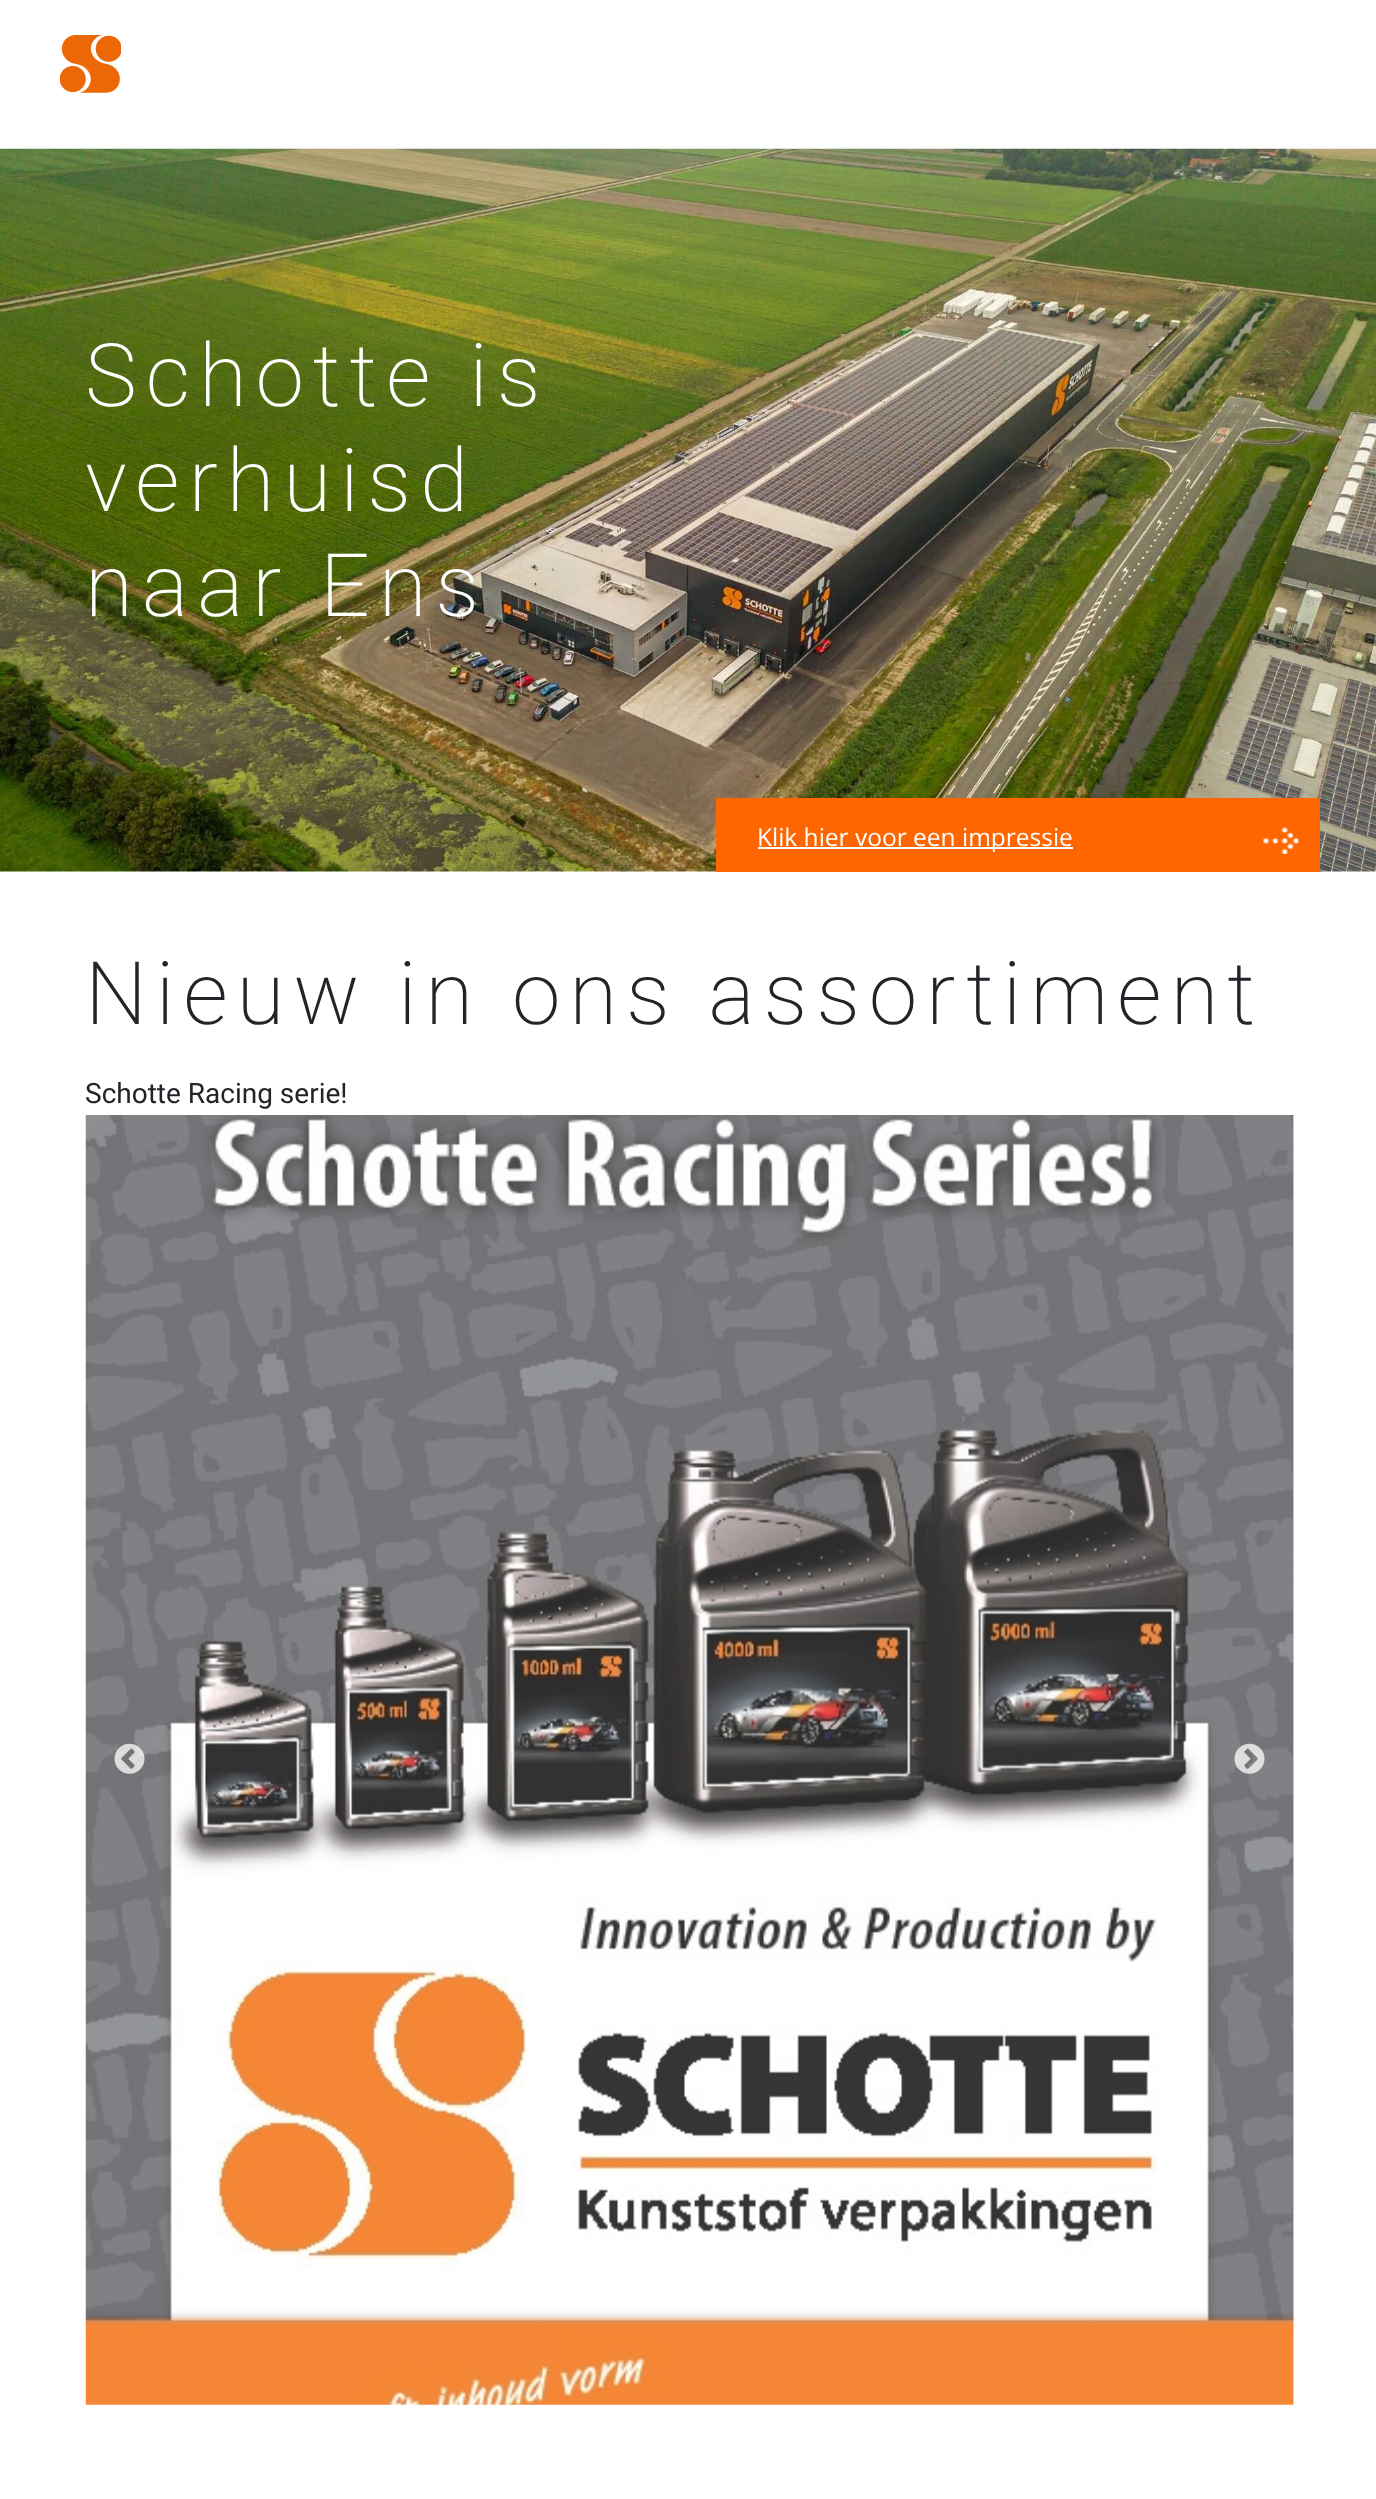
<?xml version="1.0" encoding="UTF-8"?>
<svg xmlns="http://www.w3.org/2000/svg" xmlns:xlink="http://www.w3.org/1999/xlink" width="1376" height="2499">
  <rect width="100%" height="100%" fill="#ffffff" />
  <image x="60" y="35" width="61" height="58" xlink:href="image1.png" />
  <image x="0" y="148" width="1376" height="724" xlink:href="image2.png" />
  <rect x="716" y="798" width="604" height="74" fill="#ff6600" />
  <rect x="758" y="847" width="315" height="2" fill="#ffffff" />
  <image x="1263" y="827" width="36" height="27" xlink:href="image3.png" />
  <image x="86" y="2403" width="1" height="2" xlink:href="image5.png" />
  <image x="85" y="1115" width="1209" height="1290" xlink:href="image4.png" />
  <image x="1292" y="1115" width="2" height="1290" xlink:href="image6.png" />
  <image x="114" y="1743" width="31" height="31" xlink:href="image7.png" />
  <image x="1234" y="1743" width="31" height="31" xlink:href="image8.png" />
  <text x="85" y="406" style="font-family: Roboto; font-size: 87.5px; font-weight: 200; letter-spacing: 8.75px; fill: #ffffff">Schotte is</text>
  <text x="85" y="511" style="font-family: Roboto; font-size: 87.5px; font-weight: 200; letter-spacing: 8.75px; fill: #ffffff">verhuisd</text>
  <text x="85" y="616" style="font-family: Roboto; font-size: 87.5px; font-weight: 200; letter-spacing: 8.75px; fill: #ffffff">naar Ens</text>
  <text x="757" y="846" style="font-family: Open Sans; font-size: 24.5px; fill: #ffffff">Klik hier voor een impressie</text>
  <text x="85" y="1024" style="font-family: Roboto; font-size: 87.5px; font-weight: 200; letter-spacing: 8.75px; fill: #212529">Nieuw in ons assortiment</text>
  <text x="85" y="1103" style="font-family: Roboto; font-size: 28px; fill: #212529">Schotte Racing serie!</text>
</svg>
